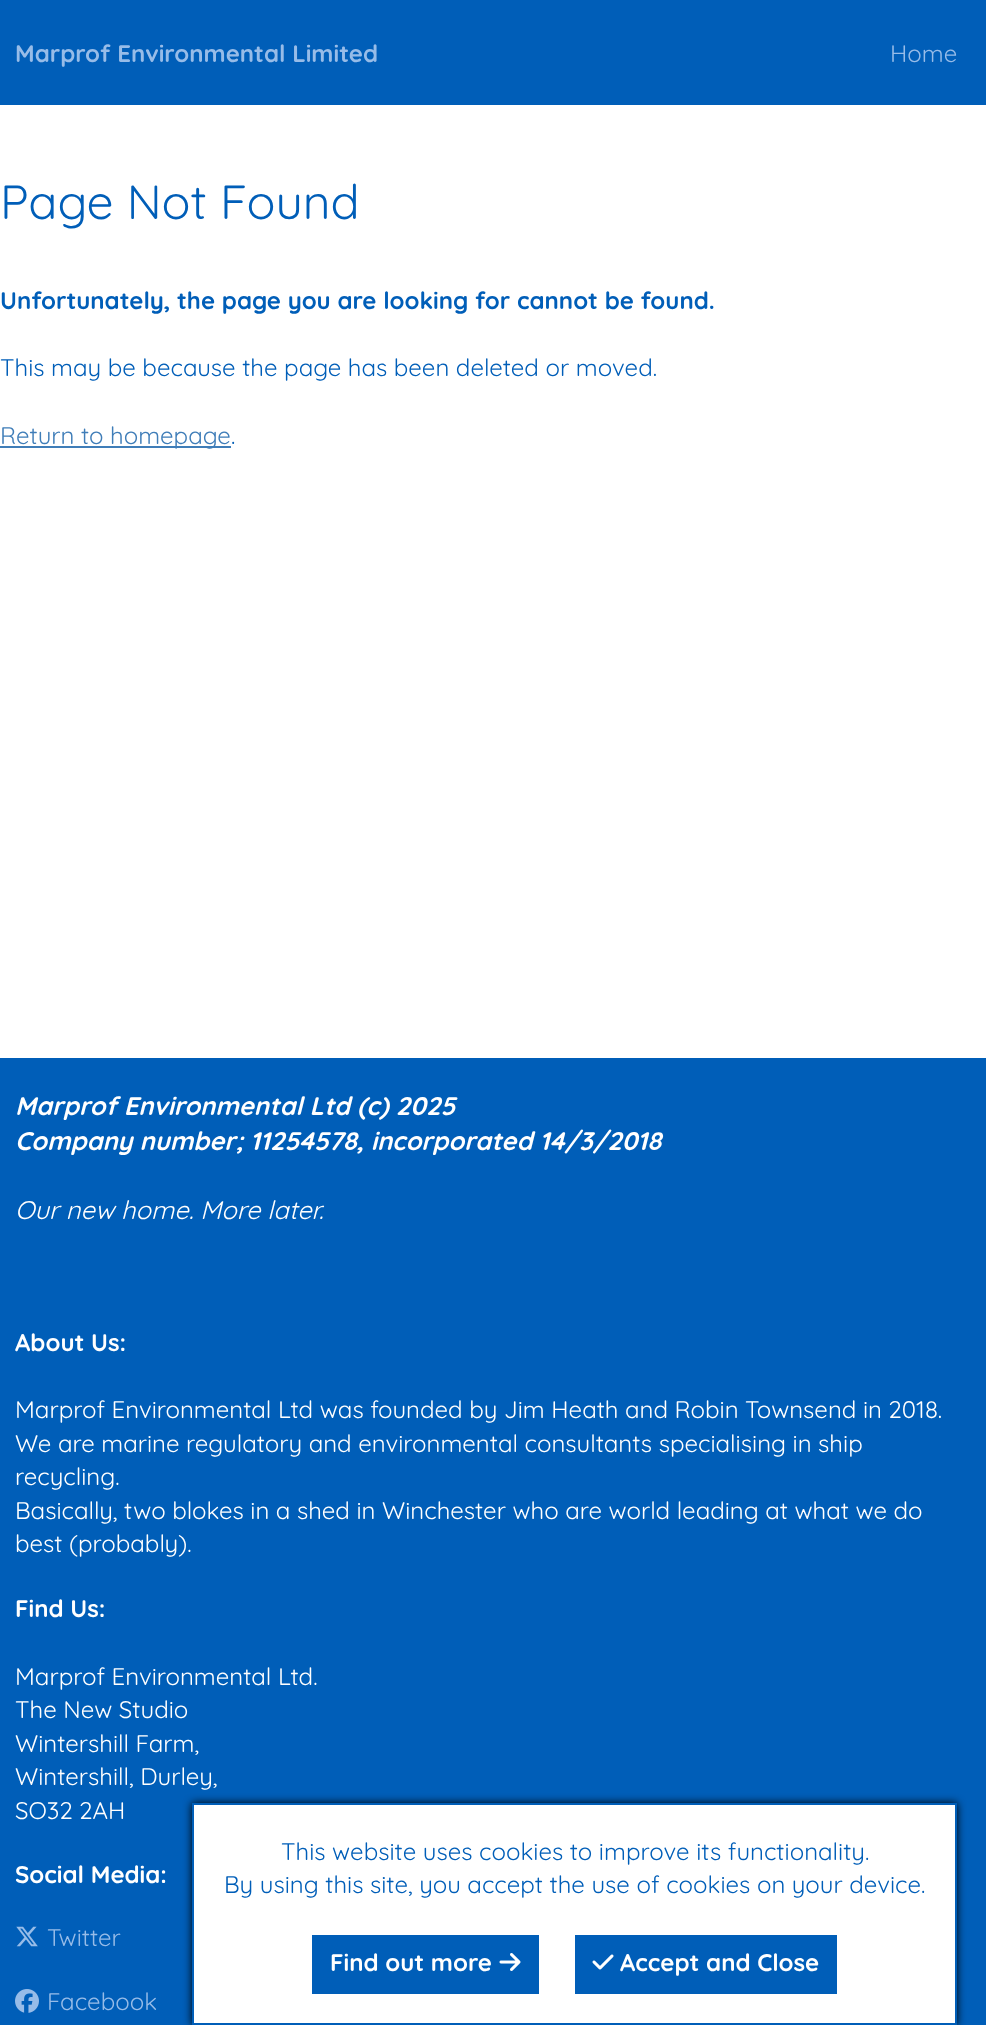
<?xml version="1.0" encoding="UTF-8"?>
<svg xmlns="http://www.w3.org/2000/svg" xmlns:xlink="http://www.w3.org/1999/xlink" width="986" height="2025">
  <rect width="100%" height="100%" fill="#ffffff" />
  <rect width="986" height="105" fill="#005eb8" />
  <rect y="446" width="231" height="2" fill="#3f7db8" />
  <rect y="1058" width="986" height="967" fill="#005eb8" />
  <image x="16" y="1926" width="22" height="21" xlink:href="image1.png" />
  <image x="15" y="1989" width="24" height="24" xlink:href="image2.png" />
  <rect x="192" y="1803" width="765" height="222" fill="#000000" filter="blur(4px)" />
  <rect x="193" y="1804" width="763" height="220" fill="#ffffff" stroke="#005eb8" stroke-width="2" />
  <rect x="312" y="1935" width="227" height="59" fill="#005eb8" />
  <image x="499" y="1953" width="22" height="18" xlink:href="image3.png" />
  <rect x="575" y="1935" width="262" height="59" fill="#005eb8" />
  <image x="592" y="1954" width="22" height="16" xlink:href="image4.png" />
  <text x="15" y="62" style="font-family: Quicksand; font-size: 24px; font-weight: bold; fill: #97bce8">Marprof Environmental Limited</text>
  <text x="890" y="62" style="font-family: Quicksand; font-size: 24px; fill: #97bce8">Home</text>
  <text x="0" y="219" style="font-family: Quicksand; font-size: 48px; fill: #005eb8">Page Not Found</text>
  <text x="0" y="309" style="font-family: Quicksand; font-size: 24px; font-weight: bold; fill: #005eb8">Unfortunately, the page you are looking for cannot be found.</text>
  <text x="0" y="376" style="font-family: Quicksand; font-size: 24px; fill: #005eb8">This may be because the page has been deleted or moved.</text>
  <text x="0" y="444" style="font-family: Quicksand; font-size: 24px; fill: #3f7db8">Return to homepage</text>
  <text x="231" y="444" style="font-family: Quicksand; font-size: 24px; fill: #005eb8">.</text>
  <text x="15" y="1115" style="font-family: Quicksand; font-size: 25.5px; font-weight: bold; font-style: italic; fill: #ffffff">Marprof Environmental Ltd (c) 2025</text>
  <text x="15" y="1150" style="font-family: Quicksand; font-size: 25.5px; font-weight: bold; font-style: italic; fill: #ffffff">Company number; 11254578, incorporated 14/3/2018</text>
  <text x="15" y="1219" style="font-family: Quicksand; font-size: 25.5px; font-style: italic; fill: #ffffff">Our new home. More later.</text>
  <text x="15" y="1351" style="font-family: Quicksand; font-size: 24px; font-weight: bold; fill: #ffffff">About Us:</text>
  <text x="15" y="1418" style="font-family: Quicksand; font-size: 24px; fill: #ffffff">Marprof Environmental Ltd was founded by Jim Heath and Robin Townsend in 2018.</text>
  <text x="15" y="1452" style="font-family: Quicksand; font-size: 24px; fill: #ffffff">We are marine regulatory and environmental consultants specialising in ship</text>
  <text x="15" y="1485" style="font-family: Quicksand; font-size: 24px; fill: #ffffff">recycling.</text>
  <text x="15" y="1519" style="font-family: Quicksand; font-size: 24px; fill: #ffffff">Basically, two blokes in a shed in Winchester who are world leading at what we do</text>
  <text x="15" y="1552" style="font-family: Quicksand; font-size: 24px; fill: #ffffff">best (probably).</text>
  <text x="15" y="1617" style="font-family: Quicksand; font-size: 24px; font-weight: bold; fill: #ffffff">Find Us:</text>
  <text x="15" y="1685" style="font-family: Quicksand; font-size: 24px; fill: #ffffff">Marprof Environmental Ltd.</text>
  <text x="15" y="1718" style="font-family: Quicksand; font-size: 24px; fill: #ffffff">The New Studio</text>
  <text x="15" y="1752" style="font-family: Quicksand; font-size: 24px; fill: #ffffff">Wintershill Farm,</text>
  <text x="15" y="1785" style="font-family: Quicksand; font-size: 24px; fill: #ffffff">Wintershill, Durley,</text>
  <text x="15" y="1819" style="font-family: Quicksand; font-size: 24px; fill: #ffffff">SO32 2AH</text>
  <text x="15" y="1883" style="font-family: Quicksand; font-size: 24px; font-weight: bold; fill: #ffffff">Social Media:</text>
  <text x="47" y="1946" style="font-family: Quicksand; font-size: 24px; fill: #97bce8">Twitter</text>
  <text x="47" y="2010" style="font-family: Quicksand; font-size: 24px; fill: #97bce8">Facebook</text>
  <text x="281" y="1860" style="font-family: Quicksand; font-size: 24px; fill: #005eb8">This website uses cookies to improve its functionality.</text>
  <text x="224" y="1893" style="font-family: Quicksand; font-size: 24px; fill: #005eb8">By using this site, you accept the use of cookies on your device.</text>
  <text x="330" y="1971" style="font-family: Quicksand; font-size: 24px; font-weight: bold; fill: #ffffff">Find out more</text>
  <text x="620" y="1971" style="font-family: Quicksand; font-size: 24px; font-weight: bold; fill: #ffffff">Accept and Close</text>
</svg>
